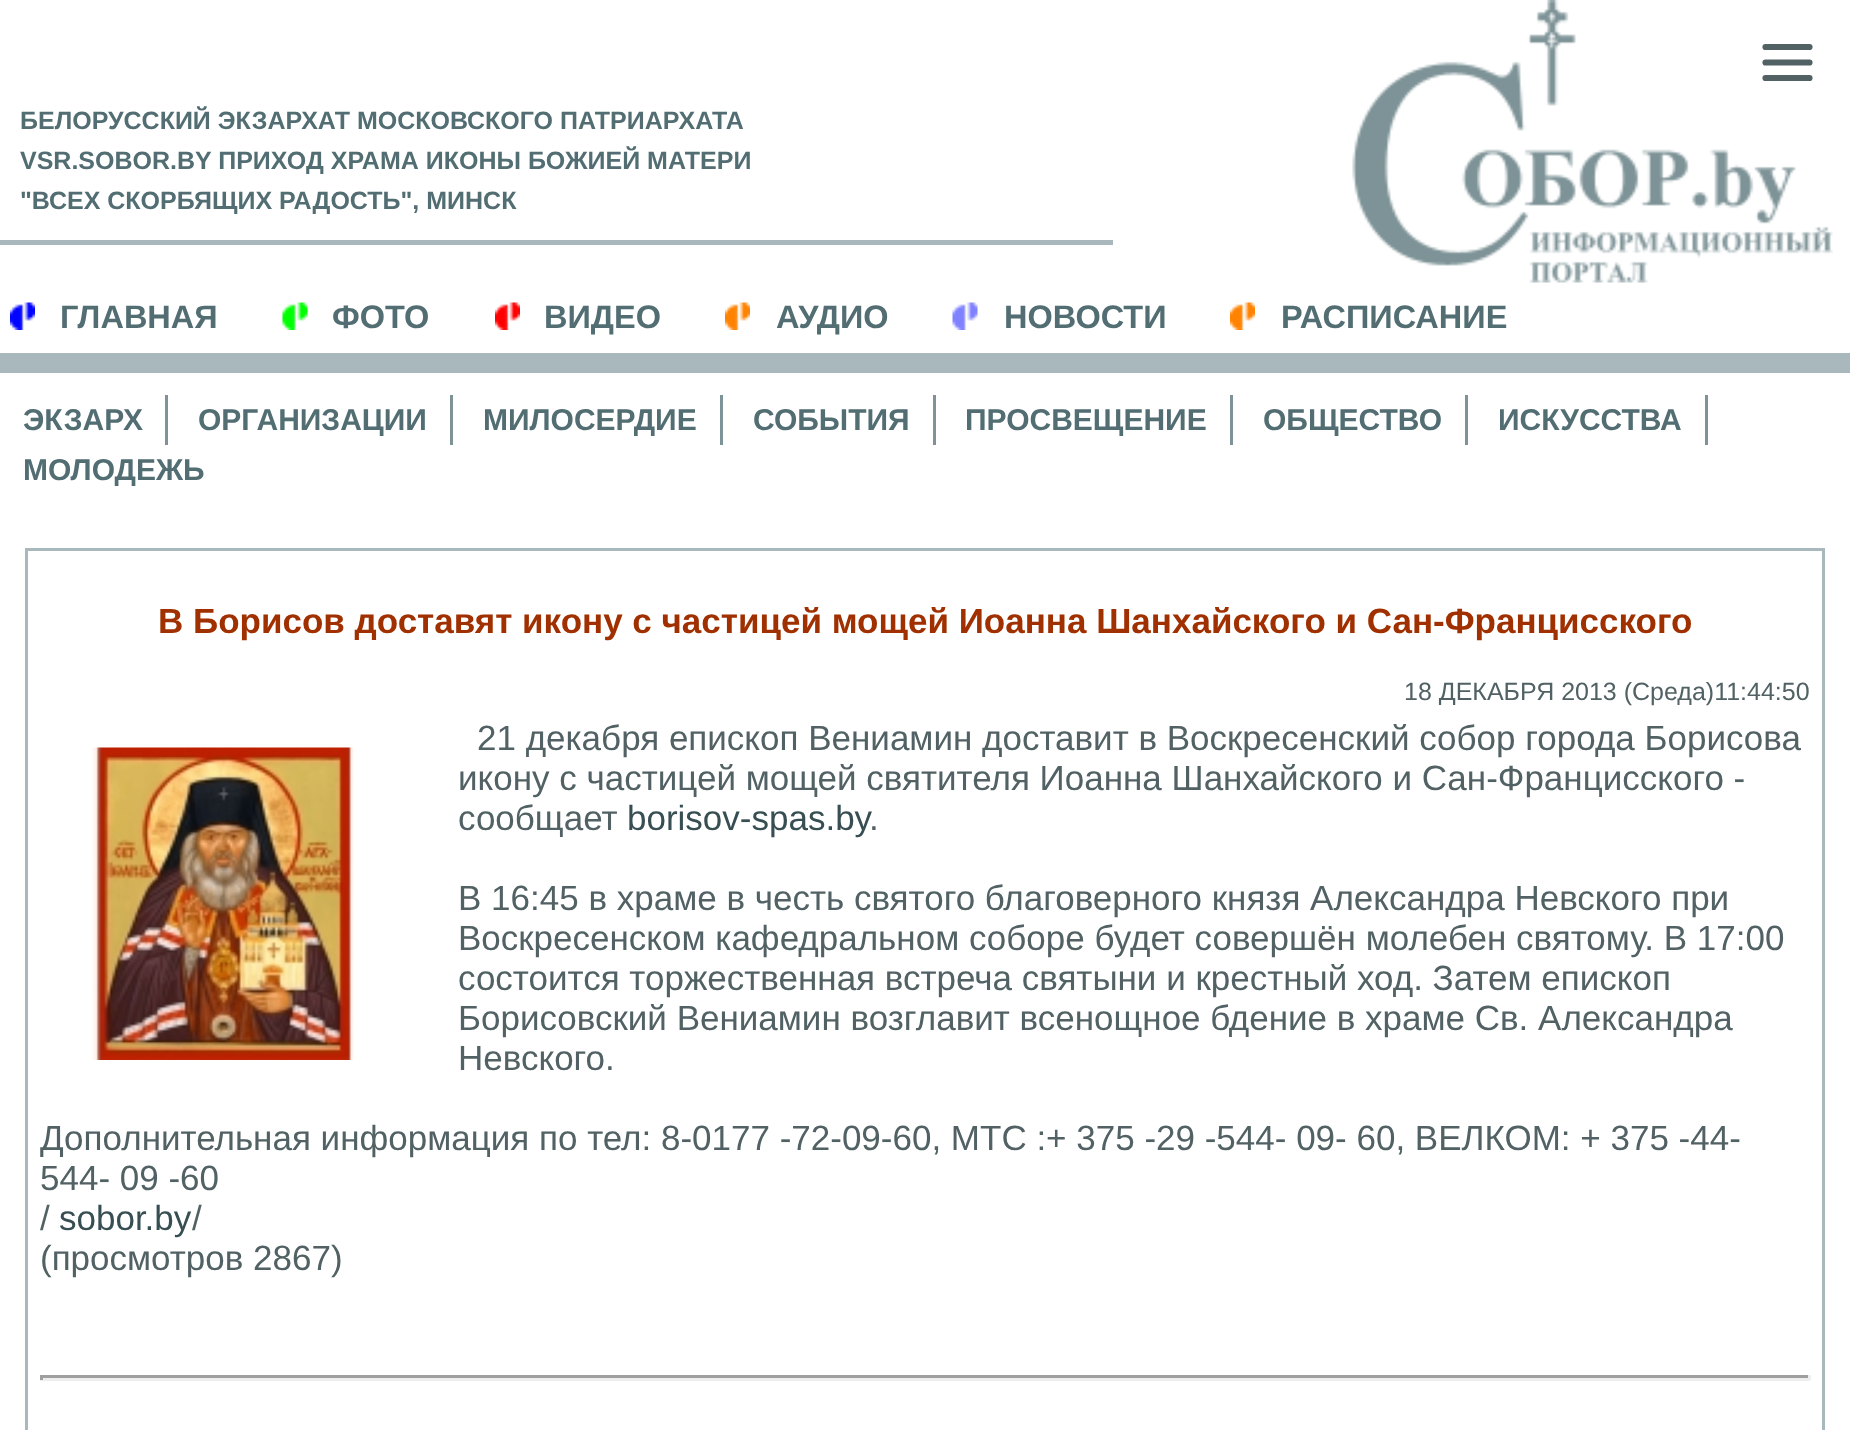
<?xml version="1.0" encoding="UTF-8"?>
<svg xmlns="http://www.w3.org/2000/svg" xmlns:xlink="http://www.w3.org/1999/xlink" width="1850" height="1430">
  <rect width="100%" height="100%" fill="#ffffff" />
  <image x="1352" y="0" width="481" height="283" xlink:href="image1.png" />
  <path d="M 1765.5 47 h 44 m -44 31 h 44 m -44 -15.5 h 44" fill="none" stroke="#516164" stroke-width="6.2" stroke-linecap="round" />
  <rect y="240" width="1113" height="5" fill="#a8b8bc" />
  <rect y="353" width="1850" height="20" fill="#a8b8bc" />
  <image x="10" y="302" width="25" height="28" xlink:href="image2.png" />
  <image x="282" y="302" width="26" height="28" xlink:href="image3.png" />
  <image x="495" y="302" width="25" height="28" xlink:href="image4.png" />
  <image x="725" y="302" width="25" height="28" xlink:href="image5.png" />
  <image x="952" y="302" width="26" height="28" xlink:href="image6.png" />
  <image x="1230" y="302" width="25" height="28" xlink:href="image7.png" />
  <rect x="165" y="395" width="3" height="50" fill="#7e9397" />
  <rect x="450" y="395" width="3" height="50" fill="#7e9397" />
  <rect x="720" y="395" width="3" height="50" fill="#7e9397" />
  <rect x="933" y="395" width="3" height="50" fill="#7e9397" />
  <rect x="1230" y="395" width="3" height="50" fill="#7e9397" />
  <rect x="1465" y="395" width="3" height="50" fill="#7e9397" />
  <rect x="1705" y="395" width="3" height="50" fill="#7e9397" />
  <rect x="26.5" y="549.5" width="1797" height="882" fill="none" stroke="#a8b8bc" stroke-width="3" />
  <image x="92" y="747" width="262" height="313" xlink:href="image8.png" />
  <rect x="40" y="1375" width="1770" height="3" fill="#9f9f9f" />
  <rect x="1808" y="1375" width="3" height="5" fill="#eeeeee" />
  <rect x="40" y="1378" width="1770" height="3" fill="#eeeeee" />
  <rect x="40" y="1375" width="3" height="5" fill="#9f9f9f" />
  <text x="20" y="129" style="font-family: Liberation Sans; font-size: 25px; font-weight: bold; fill: #526e73">БЕЛОРУССКИЙ ЭКЗАРХАТ МОСКОВСКОГО ПАТРИАРХАТА</text>
  <text x="20" y="169" style="font-family: Liberation Sans; font-size: 25px; font-weight: bold; fill: #526e73">VSR.SOBOR.BY ПРИХОД ХРАМА ИКОНЫ БОЖИЕЙ МАТЕРИ</text>
  <text x="20" y="209" style="font-family: Liberation Sans; font-size: 25px; font-weight: bold; fill: #526e73">"ВСЕХ СКОРБЯЩИХ РАДОСТЬ", МИНСК</text>
  <text x="60" y="328" style="font-family: Liberation Sans; font-size: 32.5px; font-weight: bold; fill: #526e73">ГЛАВНАЯ</text>
  <text x="332" y="328" style="font-family: Liberation Sans; font-size: 32.5px; font-weight: bold; fill: #526e73">ФОТО</text>
  <text x="544" y="328" style="font-family: Liberation Sans; font-size: 32.5px; font-weight: bold; fill: #526e73">ВИДЕО</text>
  <text x="776" y="328" style="font-family: Liberation Sans; font-size: 32.5px; font-weight: bold; fill: #526e73">АУДИО</text>
  <text x="1004" y="328" style="font-family: Liberation Sans; font-size: 32.5px; font-weight: bold; fill: #526e73">НОВОСТИ</text>
  <text x="1281" y="328" style="font-family: Liberation Sans; font-size: 32.5px; font-weight: bold; fill: #526e73">РАСПИСАНИЕ</text>
  <text x="23" y="430" style="font-family: Liberation Sans; font-size: 30px; font-weight: bold; fill: #526e73">ЭКЗАРХ</text>
  <text x="198" y="430" style="font-family: Liberation Sans; font-size: 30px; font-weight: bold; fill: #526e73">ОРГАНИЗАЦИИ</text>
  <text x="483" y="430" style="font-family: Liberation Sans; font-size: 30px; font-weight: bold; fill: #526e73">МИЛОСЕРДИЕ</text>
  <text x="753" y="430" style="font-family: Liberation Sans; font-size: 30px; font-weight: bold; fill: #526e73">СОБЫТИЯ</text>
  <text x="965" y="430" style="font-family: Liberation Sans; font-size: 30px; font-weight: bold; fill: #526e73">ПРОСВЕЩЕНИЕ</text>
  <text x="1263" y="430" style="font-family: Liberation Sans; font-size: 30px; font-weight: bold; fill: #526e73">ОБЩЕСТВО</text>
  <text x="1498" y="430" style="font-family: Liberation Sans; font-size: 30px; font-weight: bold; fill: #526e73">ИСКУССТВА</text>
  <text x="23" y="480" style="font-family: Liberation Sans; font-size: 30px; font-weight: bold; fill: #526e73">МОЛОДЕЖЬ</text>
  <text x="158" y="633" style="font-family: Liberation Sans; font-size: 35px; font-weight: bold; fill: #a03000">В Борисов доставят икону с частицей мощей Иоанна Шанхайского и Сан-Францисского</text>
  <text x="1404" y="700" style="font-family: Liberation Sans; font-size: 25px; fill: #516164">18 ДЕКАБРЯ 2013 (Среда)11:44:50</text>
  <text x="477" y="750" style="font-family: Liberation Sans; font-size: 35px; fill: #516164">21 декабря епископ Вениамин доставит в Воскресенский собор города Борисова</text>
  <text x="458" y="790" style="font-family: Liberation Sans; font-size: 35px; fill: #516164">икону с частицей мощей святителя Иоанна Шанхайского и Сан-Францисского -</text>
  <text x="458" y="830" style="font-family: Liberation Sans; font-size: 35px; fill: #516164">сообщает</text>
  <text x="627" y="830" style="font-family: Liberation Sans; font-size: 35px; fill: #374e52">borisov-spas.by</text>
  <text x="869" y="830" style="font-family: Liberation Sans; font-size: 35px; fill: #516164">.</text>
  <text x="458" y="910" style="font-family: Liberation Sans; font-size: 35px; fill: #516164">В 16:45 в храме в честь святого благоверного князя Александра Невского при</text>
  <text x="458" y="950" style="font-family: Liberation Sans; font-size: 35px; fill: #516164">Воскресенском кафедральном соборе будет совершён молебен святому. В 17:00</text>
  <text x="458" y="990" style="font-family: Liberation Sans; font-size: 35px; fill: #516164">состоится торжественная встреча святыни и крестный ход. Затем епископ</text>
  <text x="458" y="1030" style="font-family: Liberation Sans; font-size: 35px; fill: #516164">Борисовский Вениамин возглавит всенощное бдение в храме Св. Александра</text>
  <text x="458" y="1070" style="font-family: Liberation Sans; font-size: 35px; fill: #516164">Невского.</text>
  <text x="40" y="1150" style="font-family: Liberation Sans; font-size: 35px; fill: #516164">Дополнительная информация по тел: 8-0177 -72-09-60, МТС :+ 375 -29 -544- 09- 60, ВЕЛКОМ: + 375 -44-</text>
  <text x="40" y="1190" style="font-family: Liberation Sans; font-size: 35px; fill: #516164">544- 09 -60</text>
  <text x="40" y="1230" style="font-family: Liberation Sans; font-size: 35px; fill: #516164">/</text>
  <text x="59" y="1230" style="font-family: Liberation Sans; font-size: 35px; fill: #374e52">sobor.by</text>
  <text x="192" y="1230" style="font-family: Liberation Sans; font-size: 35px; fill: #516164">/</text>
  <text x="40" y="1270" style="font-family: Liberation Sans; font-size: 35px; fill: #516164">(просмотров 2867)</text>
</svg>
